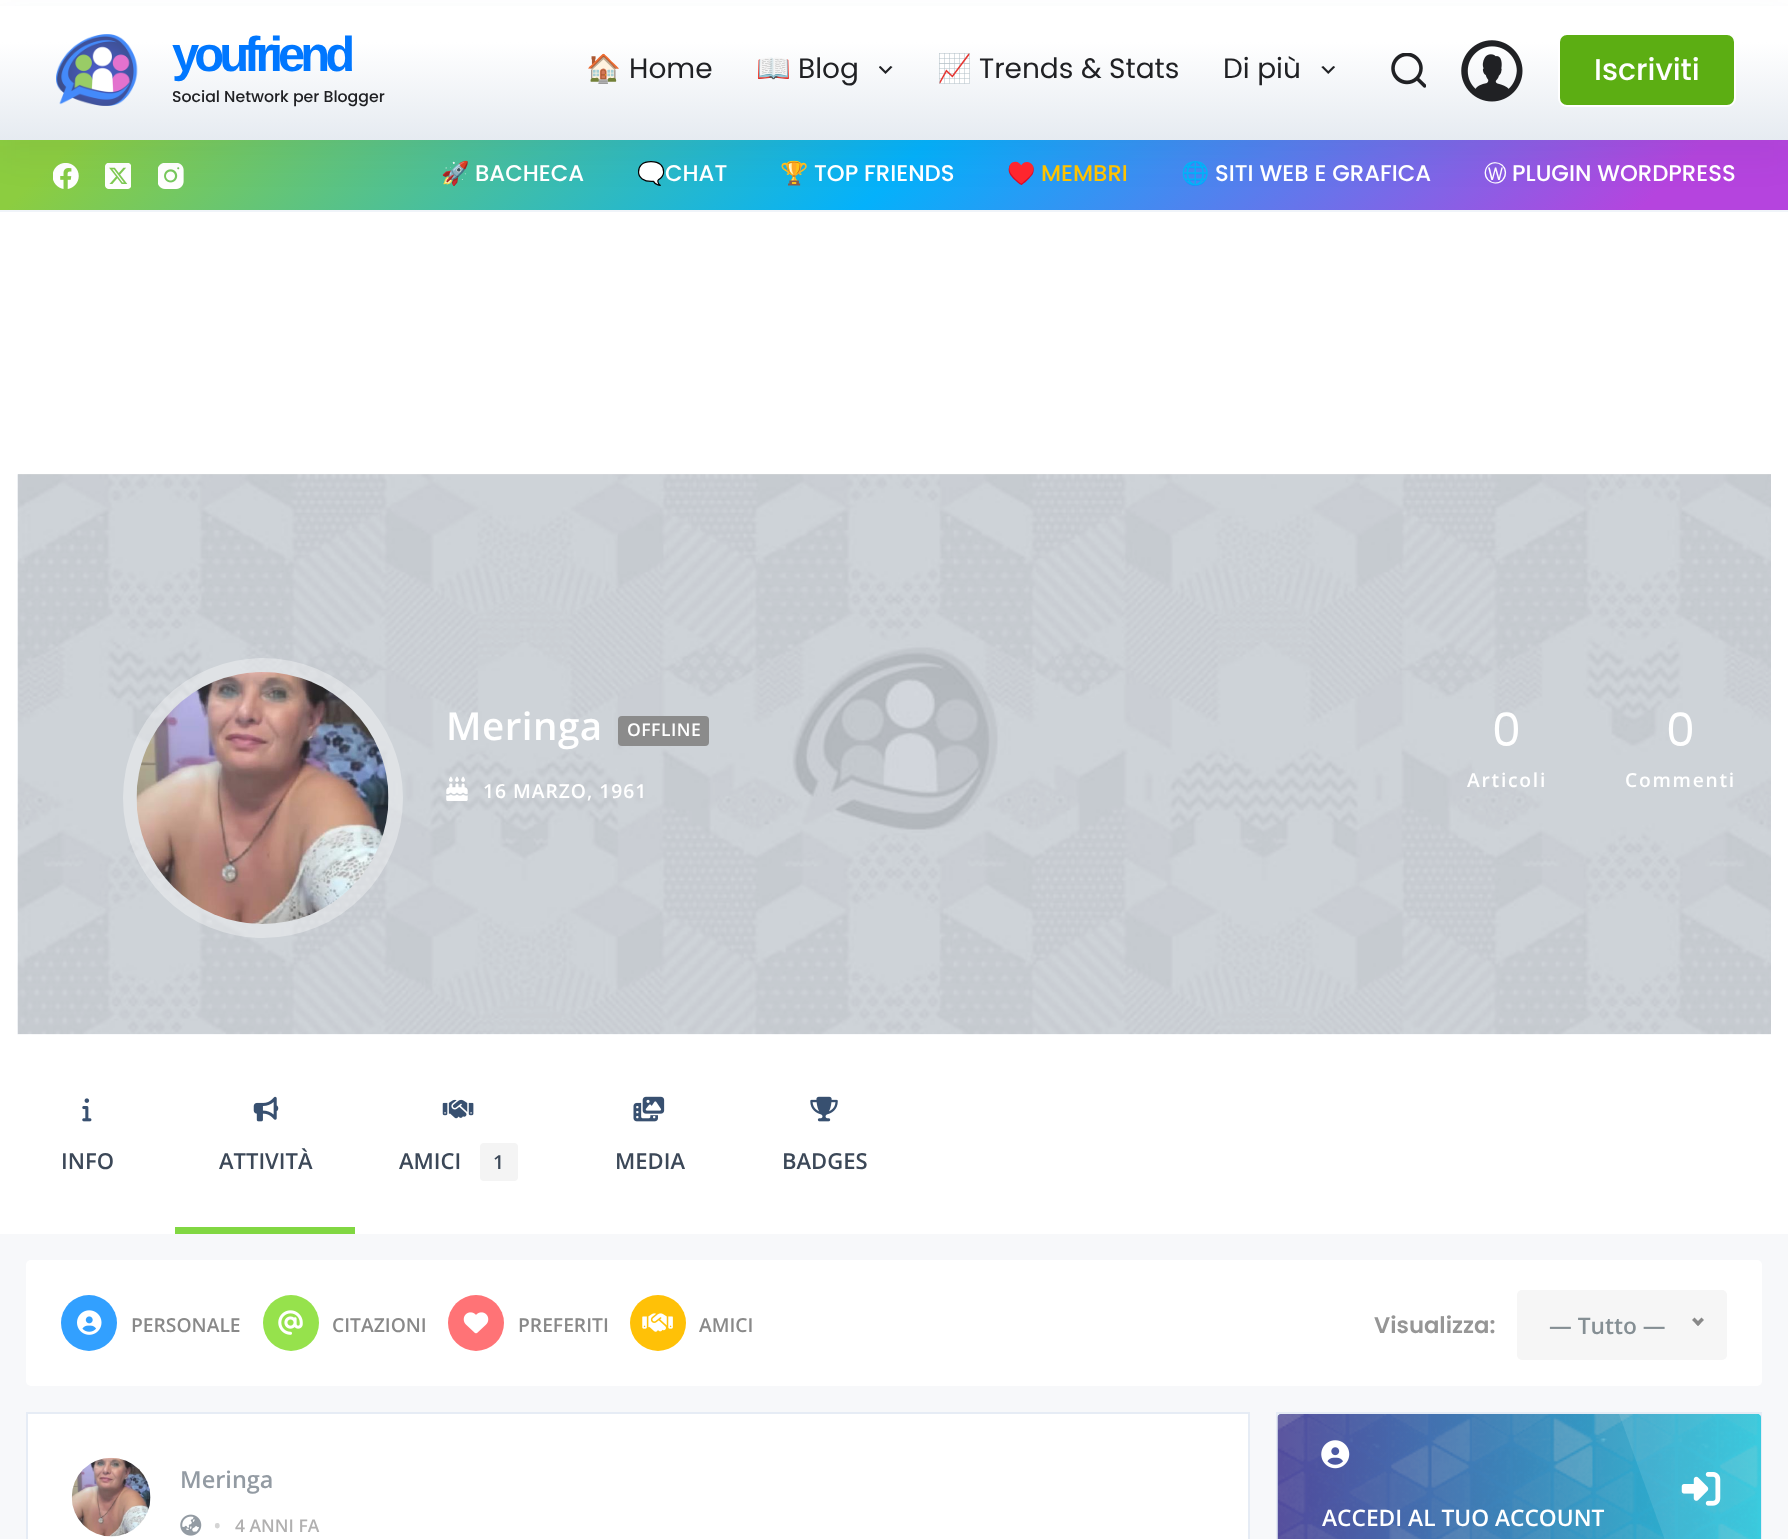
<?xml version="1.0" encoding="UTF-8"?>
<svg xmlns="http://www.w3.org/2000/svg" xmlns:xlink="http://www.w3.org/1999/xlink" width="1788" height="1539">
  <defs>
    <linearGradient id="g1" gradientUnits="userSpaceOnUse" x1="430" y1="-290" x2="1359" y2="640"><stop offset="0.04" stop-color="#8ccd40" /><stop offset="0.5" stop-color="#04b1fb" /><stop offset="0.92" stop-color="#b544de" /></linearGradient>
    <linearGradient id="g2" gradientUnits="userSpaceOnUse" x1="894" y1="140" x2="894" y2="0"><stop offset="0" stop-color="#e6ebf1" /><stop offset="0.7" stop-color="#ffffff" /></linearGradient>
  </defs>
  <rect width="100%" height="100%" fill="#ffffff" />
  <rect y="140" width="1788" height="70" fill="url(#g1)" />
  <rect y="210" width="1788" height="2" fill="#f0f4f9" />
  <image x="53" y="163" width="26" height="26" xlink:href="image6.png" />
  <image x="105" y="163" width="26" height="26" xlink:href="image7.png" />
  <image x="158" y="163" width="26" height="26" xlink:href="image8.png" />
  <rect y="18" width="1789" height="140" fill="#2c3e50" fill-opacity="0.05" filter="blur(17.5px)" />
  <rect y="6" width="1788" height="134" fill="url(#g2)" />
  <image x="56" y="34" width="82" height="72" xlink:href="image1.png" />
  <image x="879" y="66" width="14" height="8" xlink:href="image2.png" />
  <image x="1321" y="66" width="14" height="8" xlink:href="image3.png" />
  <image x="1391" y="53" width="35" height="35" xlink:href="image4.png" />
  <image x="1461" y="40" width="62" height="62" xlink:href="image5.png" />
  <rect x="1559" y="34" width="176" height="72" rx="8" fill="#5cae13" stroke="#ffffff" stroke-width="2" />
  <rect y="1234" width="1788" height="305" fill="#f7f8fa" />
  <image x="17" y="474" width="1754" height="561" xlink:href="image9.png" />
  <rect x="18" y="474" width="1753" height="560" fill="#000000" fill-opacity="0.1" />
  <circle cx="263" cy="798" r="140" fill="#ffffff" fill-opacity="0.35" />
  <image x="136" y="672" width="253" height="252" xlink:href="image10.png" />
  <rect x="618" y="716" width="91" height="30" rx="4" fill="#8b8b8b" />
  <image x="446" y="776" width="22" height="25" xlink:href="image11.png" />
  <image x="82" y="1098" width="10" height="24" xlink:href="image12.png" />
  <rect x="175" y="1227" width="180" height="7" fill="#81d742" />
  <image x="253" y="1096" width="26" height="26" xlink:href="image13.png" />
  <image x="442" y="1099" width="32" height="20" xlink:href="image14.png" />
  <rect x="480" y="1143" width="38" height="38" rx="4" fill="#f4f4f4" />
  <image x="633" y="1096" width="32" height="26" xlink:href="image15.png" />
  <image x="810" y="1096" width="28" height="26" xlink:href="image16.png" />
  <rect x="26" y="1260" width="1736" height="126" rx="5" fill="#ffffff" />
  <circle cx="89" cy="1323" r="28" fill="#32a0ff" />
  <image x="77" y="1310" width="25" height="25" xlink:href="image17.png" />
  <circle cx="291" cy="1323" r="28" fill="#96e24c" />
  <image x="278" y="1310" width="25" height="25" xlink:href="image18.png" />
  <circle cx="476" cy="1323" r="28" fill="#ff7376" />
  <image x="463" y="1312" width="26" height="22" xlink:href="image19.png" />
  <circle cx="658" cy="1323" r="28" fill="#ffc107" />
  <image x="642" y="1313" width="31" height="19" xlink:href="image20.png" />
  <rect x="1517" y="1290" width="210" height="70" rx="5" fill="#f6f6f6" />
  <path d="M 1701.5 1317.5 l 2.5 2.5 l -6 6 l -2.5 -2.5 z" fill="#898989" />
  <path d="M 1694.5 1317.5 l 6 6 l -2.5 2.5 l -6 -6 z" fill="#898989" />
  <rect x="27" y="1413" width="1222" height="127" fill="#ffffff" stroke="#e6ecf5" stroke-width="2" />
  <image x="71" y="1457" width="80" height="80" xlink:href="image21.png" />
  <image x="180" y="1514" width="22" height="22" xlink:href="image22.png" />
  <rect x="1278" y="1414" width="482" height="2" fill="#ffffff" />
  <rect x="1277" y="1413" width="484" height="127" fill="none" stroke="#e6ecf5" stroke-width="2" />
  <rect x="1278" y="1414" width="483" height="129" rx="4" fill="#24c6dc" />
  <image x="1277" y="1414" width="484" height="125" xlink:href="image23.png" />
  <image x="1321" y="1440" width="29" height="29" xlink:href="image24.png" />
  <path d="M 1670 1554 l -51 -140 h 138 c 2 0 4 2 4 4 v 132 c 0 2 -2 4 -4 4 z" fill="#ffffff" fill-opacity="0.1" />
  <image x="1681" y="1472" width="40" height="34" xlink:href="image25.png" />
  <text x="172" y="71" style="font-family: Liberation Sans; font-size: 49px; font-weight: bold; letter-spacing: -5px; fill: #0077ff">youfriend</text>
  <text x="172" y="102" style="font-family: Poppins; font-size: 15.75px; font-weight: 500; fill: #202124">Social Network per Blogger</text>
  <text x="586" y="78" style="font-family: Noto Color Emoji; font-size: 28px; fill: #202124">🏠</text>
  <text x="629" y="78" style="font-family: Poppins; font-size: 28px; fill: #202124">Home</text>
  <text x="756" y="78" style="font-family: Noto Color Emoji; font-size: 28px; fill: #202124">📖</text>
  <text x="798" y="78" style="font-family: Poppins; font-size: 28px; fill: #202124">Blog</text>
  <text x="937" y="78" style="font-family: Noto Color Emoji; font-size: 28px; fill: #202124">📈</text>
  <text x="979" y="78" style="font-family: Poppins; font-size: 28px; fill: #202124">Trends &amp; Stats</text>
  <text x="1223" y="78" style="font-family: Poppins; font-size: 28px; fill: #202124">Di più</text>
  <text x="1594" y="80" style="font-family: Poppins; font-size: 30px; font-weight: 500; fill: #ffffff">Iscriviti</text>
  <text x="441" y="181" style="font-family: Noto Color Emoji; font-size: 22.75px; fill: #ffffff">🚀</text>
  <text x="475" y="181" style="font-family: Poppins; font-size: 22.75px; font-weight: 500; fill: #ffffff">BACHECA</text>
  <text x="637" y="181" style="font-family: Noto Color Emoji; font-size: 22.75px; fill: #ffffff">🗨️</text>
  <text x="665" y="181" style="font-family: Poppins; font-size: 22.75px; font-weight: 500; fill: #ffffff">CHAT</text>
  <text x="780" y="181" style="font-family: Noto Color Emoji; font-size: 22.75px; fill: #ffffff">🏆</text>
  <text x="814" y="181" style="font-family: Poppins; font-size: 22.75px; font-weight: 500; fill: #ffffff">TOP FRIENDS</text>
  <text x="1007" y="181" style="font-family: Noto Color Emoji; font-size: 22.75px; fill: #ffc300">♥️</text>
  <text x="1041" y="181" style="font-family: Poppins; font-size: 22.75px; font-weight: 500; fill: #ffc300">MEMBRI</text>
  <text x="1181" y="181" style="font-family: Noto Color Emoji; font-size: 22.75px; fill: #ffffff">🌐</text>
  <text x="1215" y="181" style="font-family: Poppins; font-size: 22.75px; font-weight: 500; fill: #ffffff">SITI WEB E GRAFICA</text>
  <text x="1484" y="181" style="font-family: WenQuanYi Zen Hei; font-size: 22.75px; font-weight: 500; fill: #ffffff">Ⓦ</text>
  <text x="1512" y="181" style="font-family: Poppins; font-size: 22.75px; font-weight: 500; fill: #ffffff">PLUGIN WORDPRESS</text>
  <text x="446" y="740" style="font-family: Open Sans; font-size: 38.5px; font-weight: 600; letter-spacing: 0.5px; fill: #ffffff">Meringa</text>
  <text x="627" y="736" style="font-family: Open Sans; font-size: 17.5px; font-weight: 600; letter-spacing: 0.5px; fill: #ffffff">OFFLINE</text>
  <text x="483" y="798" style="font-family: Open Sans; font-size: 19.25px; font-weight: 600; letter-spacing: 1px; fill: #ffffff">16 MARZO, 1961</text>
  <text x="1492" y="746" style="font-family: Poppins; font-size: 46px; fill: #ffffff">0</text>
  <text x="1467" y="787" style="font-family: Open Sans; font-size: 19.25px; font-weight: 600; letter-spacing: 1.75px; fill: #ffffff">Articoli</text>
  <text x="1666" y="746" style="font-family: Poppins; font-size: 46px; fill: #ffffff">0</text>
  <text x="1625" y="787" style="font-family: Open Sans; font-size: 19.25px; font-weight: 600; letter-spacing: 1.75px; fill: #ffffff">Commenti</text>
  <text x="61" y="1169" style="font-family: Open Sans; font-size: 22px; font-weight: 600; fill: #3c4858">INFO</text>
  <text x="219" y="1169" style="font-family: Open Sans; font-size: 22px; font-weight: 600; fill: #3c4858">ATTIVITÀ</text>
  <text x="399" y="1169" style="font-family: Open Sans; font-size: 22px; font-weight: 600; fill: #3c4858">AMICI</text>
  <text x="493" y="1169" style="font-family: Open Sans; font-size: 19.25px; font-weight: 600; fill: #3c4858">1</text>
  <text x="615" y="1169" style="font-family: Open Sans; font-size: 22px; font-weight: 600; fill: #3c4858">MEDIA</text>
  <text x="782" y="1169" style="font-family: Open Sans; font-size: 22px; font-weight: 600; fill: #3c4858">BADGES</text>
  <text x="131" y="1332" style="font-family: Open Sans; font-size: 19.25px; font-weight: 600; fill: #898989">PERSONALE</text>
  <text x="332" y="1332" style="font-family: Open Sans; font-size: 19.25px; font-weight: 600; fill: #898989">CITAZIONI</text>
  <text x="518" y="1332" style="font-family: Open Sans; font-size: 19.25px; font-weight: 600; fill: #898989">PREFERITI</text>
  <text x="699" y="1332" style="font-family: Open Sans; font-size: 19.25px; font-weight: 600; fill: #898989">AMICI</text>
  <text x="1374" y="1333" style="font-family: Poppins; font-size: 22.75px; font-weight: 600; fill: #969696">Visualizza:</text>
  <text x="1549" y="1334" style="font-family: Open Sans; font-size: 22.75px; font-weight: 600; fill: #858f94">— Tutto —</text>
  <text x="180" y="1488" style="font-family: Open Sans; font-size: 23.5px; font-weight: 600; fill: #939ba3">Meringa</text>
  <text x="213" y="1534" style="font-family: Open Sans; font-size: 22.75px; fill: #d4d4d4">•</text>
  <text x="235" y="1532" style="font-family: Open Sans; font-size: 17.5px; font-weight: 600; fill: #b1b0b0">4 ANNI FA</text>
  <text x="1322" y="1526" style="font-family: Open Sans; font-size: 22.75px; font-weight: 600; fill: #ffffff">ACCEDI AL TUO ACCOUNT</text>
</svg>
